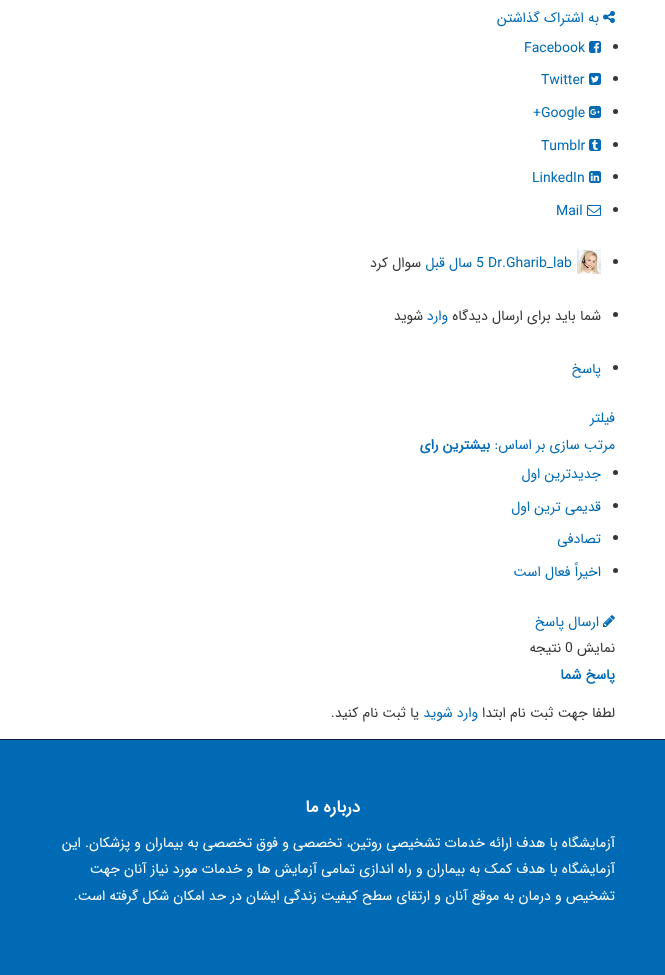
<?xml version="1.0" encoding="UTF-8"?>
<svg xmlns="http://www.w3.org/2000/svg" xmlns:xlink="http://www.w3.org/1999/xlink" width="665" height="975">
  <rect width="100%" height="100%" fill="#ffffff" />
  <image x="603" y="11" width="12" height="12" xlink:href="image1.png" />
  <circle cx="615.5" cy="46.5" r="2.5" fill="#363636" />
  <image x="589" y="41" width="12" height="12" xlink:href="image2.png" />
  <circle cx="615.5" cy="78.5" r="2.5" fill="#363636" />
  <image x="589" y="73" width="12" height="12" xlink:href="image3.png" />
  <circle cx="615.5" cy="111.5" r="2.5" fill="#363636" />
  <image x="589" y="106" width="12" height="12" xlink:href="image4.png" />
  <circle cx="615.5" cy="144.5" r="2.5" fill="#363636" />
  <image x="589" y="139" width="12" height="12" xlink:href="image5.png" />
  <circle cx="615.5" cy="176.5" r="2.5" fill="#363636" />
  <image x="589" y="171" width="12" height="12" xlink:href="image6.png" />
  <circle cx="615.5" cy="209.5" r="2.5" fill="#363636" />
  <image x="587" y="205" width="14" height="11" xlink:href="image7.png" />
  <circle cx="615.5" cy="261.5" r="2.5" fill="#363636" />
  <image x="577" y="250" width="24" height="24" xlink:href="image8.png" />
  <circle cx="615.5" cy="314.5" r="2.5" fill="#363636" />
  <circle cx="615.5" cy="367.5" r="2.5" fill="#363636" />
  <circle cx="615.5" cy="472.5" r="2.5" fill="#363636" />
  <circle cx="615.5" cy="505.5" r="2.5" fill="#363636" />
  <circle cx="615.5" cy="537.5" r="2.5" fill="#363636" />
  <circle cx="615.5" cy="570.5" r="2.5" fill="#363636" />
  <image x="603" y="615" width="12" height="12" xlink:href="image9.png" />
  <rect y="740" width="665" height="235" fill="#006ab5" />
  <rect y="739" width="665" height="1" fill="#0b1947" />
  <text x="599" y="22" style="font-family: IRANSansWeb; font-size: 14px; direction: rtl; fill: #006ab5">به اشتراک گذاشتن</text>
  <text x="524" y="52" style="font-family: IRANSansWeb; font-size: 14px; fill: #006ab5">Facebook</text>
  <text x="541" y="84" style="font-family: IRANSansWeb; font-size: 14px; fill: #006ab5">Twitter</text>
  <text x="533" y="117" style="font-family: IRANSansWeb; font-size: 14px; fill: #006ab5">+Google</text>
  <text x="541" y="150" style="font-family: IRANSansWeb; font-size: 14px; fill: #006ab5">Tumblr</text>
  <text x="532" y="182" style="font-family: IRANSansWeb; font-size: 14px; fill: #006ab5">LinkedIn</text>
  <text x="556" y="215" style="font-family: IRANSansWeb; font-size: 14px; fill: #006ab5">Mail</text>
  <text x="488" y="267" style="font-family: IRANSansWeb; font-size: 14px; fill: #006ab5">Dr.Gharib_lab</text>
  <text x="476" y="267" style="font-family: IRANSansWeb; font-size: 14px; fill: #006ab5">5</text>
  <text x="472" y="267" style="font-family: IRANSansWeb; font-size: 14px; direction: rtl; fill: #006ab5">سال قبل</text>
  <text x="421" y="267" style="font-family: IRANSansWeb; font-size: 14px; direction: rtl; fill: #363636">سوال کرد</text>
  <text x="601" y="320" style="font-family: IRANSansWeb; font-size: 14px; direction: rtl; fill: #363636">شما باید برای ارسال دیدگاه</text>
  <text x="448" y="320" style="font-family: IRANSansWeb; font-size: 14px; direction: rtl; fill: #006ab5">وارد</text>
  <text x="423" y="320" style="font-family: IRANSansWeb; font-size: 14px; direction: rtl; fill: #363636">شوید</text>
  <text x="601" y="373" style="font-family: IRANSansWeb; font-size: 14px; direction: rtl; fill: #006ab5">پاسخ</text>
  <text x="615" y="422" style="font-family: IRANSansWeb; font-size: 14px; direction: rtl; fill: #006ab5">فیلتر</text>
  <text x="615" y="449" style="font-family: IRANSansWeb; font-size: 14px; direction: rtl; fill: #006ab5">مرتب سازی بر اساس:</text>
  <text x="490" y="449" style="font-family: IRANSansWeb; font-size: 14px; font-weight: bold; direction: rtl; fill: #006ab5">بیشترین رای</text>
  <text x="601" y="478" style="font-family: IRANSansWeb; font-size: 14px; direction: rtl; fill: #006ab5">جدیدترین اول</text>
  <text x="601" y="511" style="font-family: IRANSansWeb; font-size: 14px; direction: rtl; fill: #006ab5">قدیمی ترین اول</text>
  <text x="601" y="543" style="font-family: IRANSansWeb; font-size: 14px; direction: rtl; fill: #006ab5">تصادفی</text>
  <text x="601" y="576" style="font-family: IRANSansWeb; font-size: 14px; direction: rtl; fill: #006ab5">اخیراً فعال است</text>
  <text x="599" y="626" style="font-family: IRANSansWeb; font-size: 14px; direction: rtl; fill: #006ab5">ارسال پاسخ</text>
  <text x="615" y="652" style="font-family: IRANSansWeb; font-size: 14px; direction: rtl; fill: #363636">نمایش</text>
  <text x="565" y="652" style="font-family: IRANSansWeb; font-size: 14px; fill: #363636">0</text>
  <text x="561" y="652" style="font-family: IRANSansWeb; font-size: 14px; direction: rtl; fill: #363636">نتیجه</text>
  <text x="615" y="679" style="font-family: IRANSansWeb; font-size: 14px; font-weight: bold; direction: rtl; fill: #006ab5">پاسخ شما</text>
  <text x="615" y="717" style="font-family: IRANSansWeb; font-size: 14px; direction: rtl; fill: #363636">لطفا جهت ثبت نام ابتدا</text>
  <text x="478" y="717" style="font-family: IRANSansWeb; font-size: 14px; direction: rtl; fill: #006ab5">وارد شوید</text>
  <text x="419" y="717" style="font-family: IRANSansWeb; font-size: 14px; direction: rtl; fill: #363636">یا ثبت نام کنید.</text>
  <text x="360" y="812" style="font-family: IRANSansWeb; font-size: 17px; font-weight: bold; direction: rtl; fill: #ffffff">درباره ما</text>
  <text x="615" y="847" style="font-family: IRANSansWeb; font-size: 14px; direction: rtl; fill: #ffffff">آزمایشگاه با هدف ارائه خدمات تشخیصی روتین، تخصصی و فوق تخصصی به بیماران و پزشکان. این</text>
  <text x="615" y="873" style="font-family: IRANSansWeb; font-size: 14px; direction: rtl; fill: #ffffff">آزمایشگاه با هدف کمک به بیماران و راه اندازی تمامی آزمایش ها و خدمات مورد نیاز آنان جهت</text>
  <text x="615" y="900" style="font-family: IRANSansWeb; font-size: 14px; direction: rtl; fill: #ffffff">تشخیص و درمان به موقع آنان و ارتقای سطح کیفیت زندگی ایشان در حد امکان شکل گرفته است.</text>
</svg>
